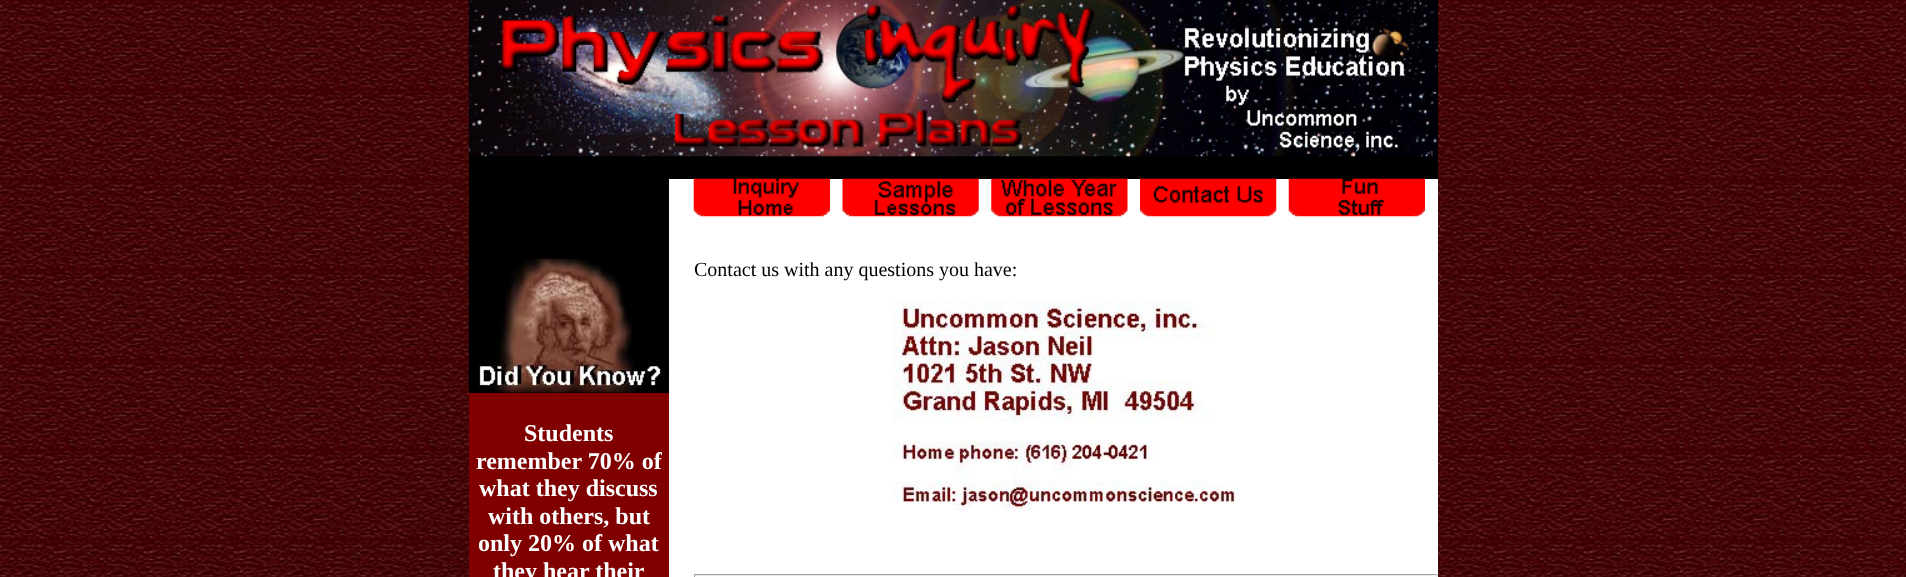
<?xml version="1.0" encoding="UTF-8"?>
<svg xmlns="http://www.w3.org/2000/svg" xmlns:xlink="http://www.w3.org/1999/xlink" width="1906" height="577">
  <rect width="100%" height="100%" fill="#ffffff" />
  <image x="0" y="0" width="1906" height="577" xlink:href="image1.png" />
  <rect x="469" width="969" height="179" fill="#000000" />
  <image x="468" y="0" width="970" height="157" xlink:href="image2.png" />
  <rect x="830" y="179" width="13" height="37" fill="#ffffff" />
  <rect x="669" y="179" width="25" height="398" fill="#ffffff" />
  <rect x="694" y="216" width="744" height="361" fill="#ffffff" />
  <image x="693" y="178" width="137" height="39" xlink:href="image3.png" />
  <rect x="978" y="179" width="162" height="37" fill="#ffffff" />
  <image x="842" y="178" width="137" height="39" xlink:href="image4.png" />
  <rect x="469" y="179" width="200" height="214" fill="#000000" />
  <image x="991" y="178" width="137" height="39" xlink:href="image5.png" />
  <rect x="1276" y="179" width="13" height="37" fill="#ffffff" />
  <image x="1140" y="178" width="137" height="39" xlink:href="image6.png" />
  <rect x="1425" y="179" width="13" height="37" fill="#ffffff" />
  <image x="1288" y="178" width="137" height="39" xlink:href="image7.png" />
  <image x="468" y="258" width="197" height="135" xlink:href="image8.png" />
  <image x="892" y="301" width="348" height="211" xlink:href="image9.png" />
  <rect x="694" y="574" width="744" height="1" fill="#9f9f9f" />
  <rect x="1436" y="574" width="1" height="3" fill="#eeeeee" />
  <rect x="694" y="575" width="744" height="1" fill="#eeeeee" />
  <rect x="694" y="574" width="1" height="3" fill="#9f9f9f" />
  <rect x="469" y="393" width="200" height="184" fill="#800000" />
  <text x="694" y="276" style="font-family: Liberation Serif; font-size: 20px; fill: #000000">Contact us with any questions you have:</text>
  <text x="524" y="441" style="font-family: Liberation Serif; font-size: 24px; font-weight: bold; fill: #ffffff">Students</text>
  <text x="476" y="469" style="font-family: Liberation Serif; font-size: 24px; font-weight: bold; fill: #ffffff">remember 70% of</text>
  <text x="479" y="496" style="font-family: Liberation Serif; font-size: 24px; font-weight: bold; fill: #ffffff">what they discuss</text>
  <text x="488" y="524" style="font-family: Liberation Serif; font-size: 24px; font-weight: bold; fill: #ffffff">with others, but</text>
  <text x="478" y="551" style="font-family: Liberation Serif; font-size: 24px; font-weight: bold; fill: #ffffff">only 20% of what</text>
  <text x="493" y="579" style="font-family: Liberation Serif; font-size: 24px; font-weight: bold; fill: #ffffff">they hear their</text>
</svg>
